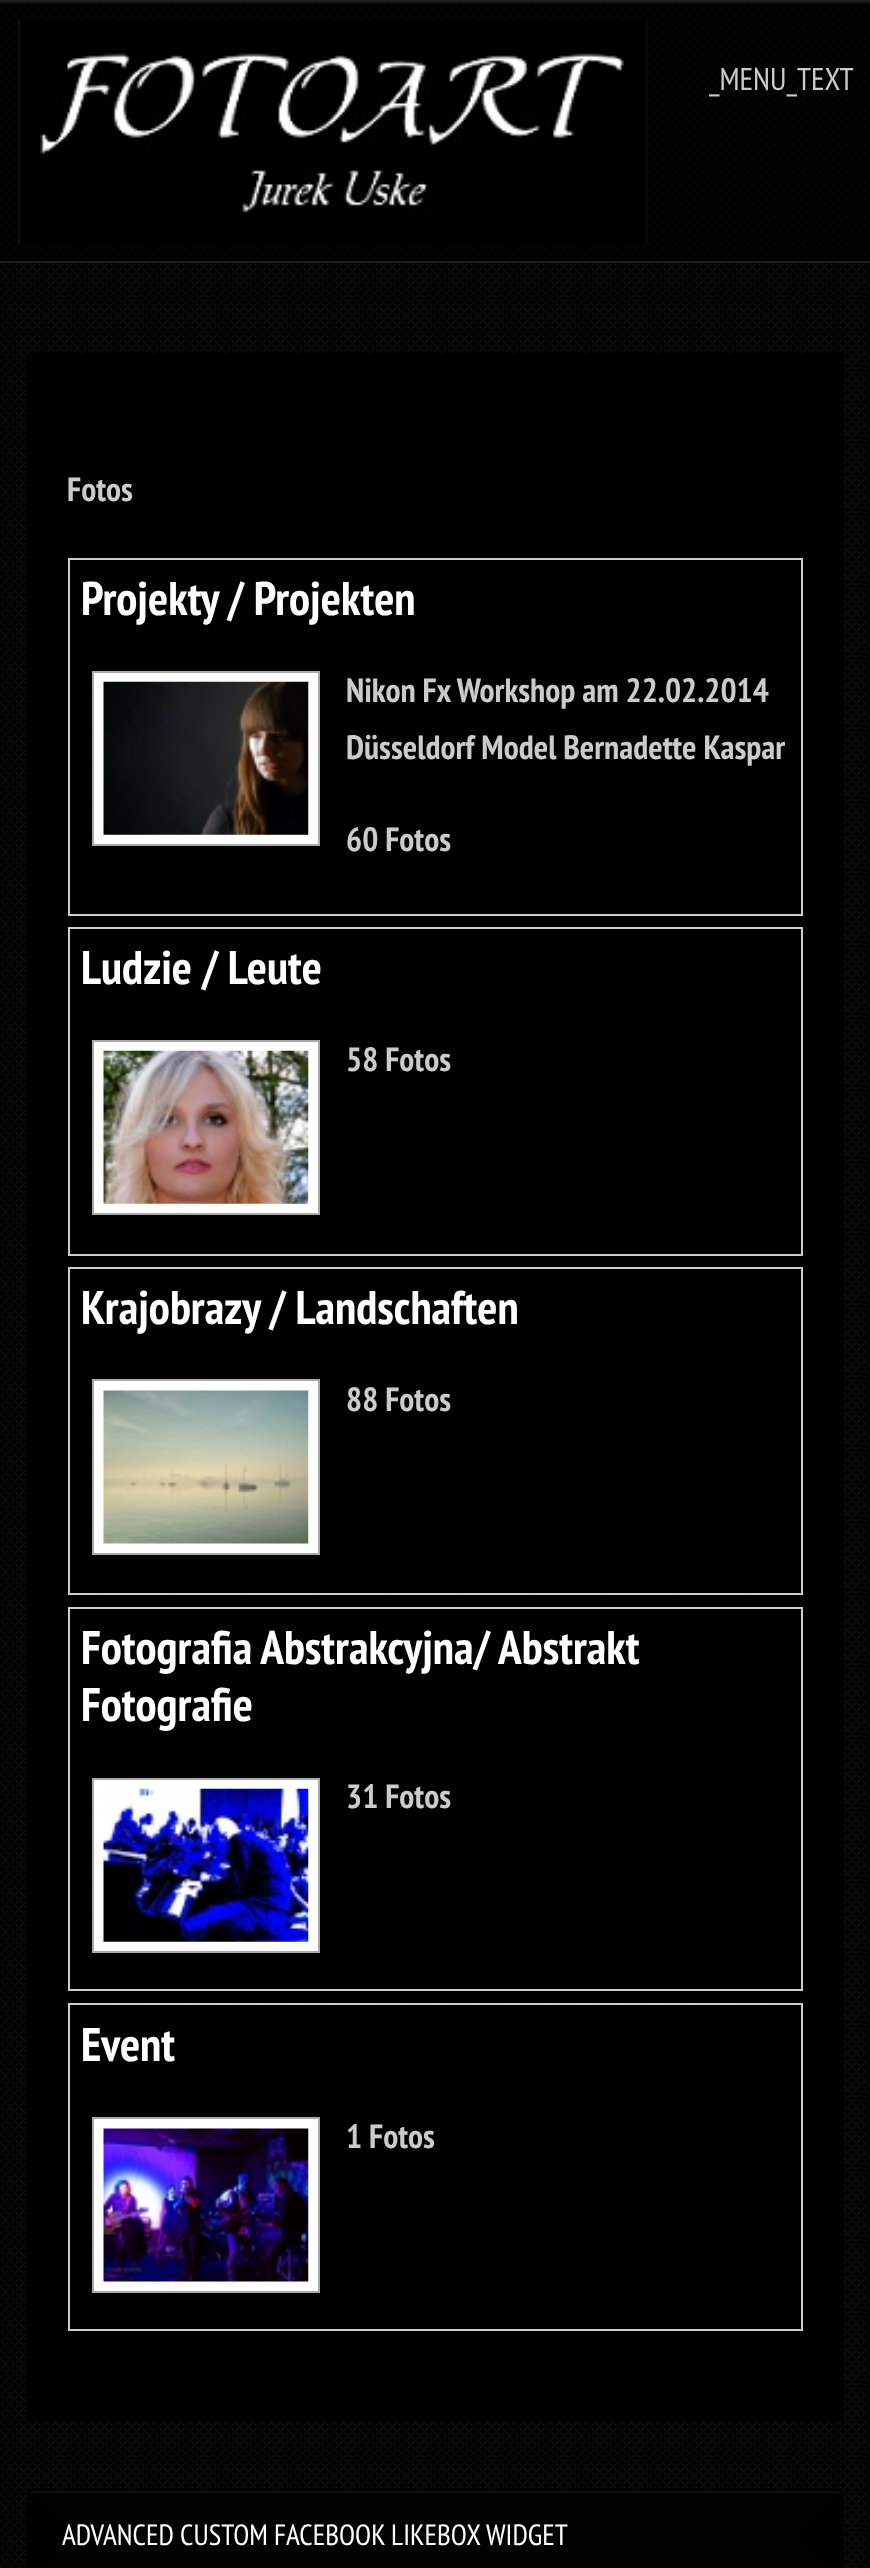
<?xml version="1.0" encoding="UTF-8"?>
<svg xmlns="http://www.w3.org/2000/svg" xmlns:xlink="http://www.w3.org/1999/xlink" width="870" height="2568">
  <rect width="100%" height="100%" fill="#000000" />
  <image x="0" y="2" width="870" height="2566" xlink:href="image1.png" />
  <rect y="2" width="870" height="259" fill="#000000" fill-opacity="0.6" />
  <rect y="2" width="870" height="2" fill="#ffffff" fill-opacity="0.05" />
  <rect width="870" height="2" fill="#1f1f1f" />
  <rect y="261" width="870" height="2" fill="#1f1f1f" />
  <image x="18" y="20" width="630" height="225" xlink:href="image2.png" />
  <rect x="27" y="353" width="817" height="2068" fill="#000000" fill-opacity="0.9" />
  <rect x="69" y="559" width="733" height="356" fill="none" stroke="#cccccc" stroke-width="2" />
  <rect x="93" y="672" width="226" height="173" fill="#ffffff" stroke="#a9a9a9" stroke-width="2" />
  <image x="103" y="681" width="206" height="154" xlink:href="image3.png" />
  <rect x="69" y="928" width="733" height="327" fill="none" stroke="#cccccc" stroke-width="2" />
  <rect x="93" y="1041" width="226" height="173" fill="#ffffff" stroke="#a9a9a9" stroke-width="2" />
  <image x="103" y="1050" width="206" height="154" xlink:href="image4.png" />
  <rect x="69" y="1268" width="733" height="326" fill="none" stroke="#cccccc" stroke-width="2" />
  <rect x="93" y="1380" width="226" height="174" fill="#ffffff" stroke="#a9a9a9" stroke-width="2" />
  <image x="103" y="1390" width="206" height="154" xlink:href="image5.png" />
  <rect x="69" y="1608" width="733" height="382" fill="none" stroke="#cccccc" stroke-width="2" />
  <rect x="93" y="1779" width="226" height="173" fill="#ffffff" stroke="#a9a9a9" stroke-width="2" />
  <image x="103" y="1788" width="206" height="154" xlink:href="image6.png" />
  <rect x="69" y="2004" width="733" height="326" fill="none" stroke="#cccccc" stroke-width="2" />
  <rect x="93" y="2118" width="226" height="174" fill="#ffffff" stroke="#a9a9a9" stroke-width="2" />
  <image x="103" y="2128" width="206" height="154" xlink:href="image7.png" />
  <path d="M 34 2489 h 803 c 4 0 7 3 7 7 v 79 h -817 v -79 c 0 -4 3 -7 7 -7 z" fill="#0c0c0c" fill-opacity="0.9" />
  <image x="27" y="2489" width="816" height="79" xlink:href="image8.png" />
  <path d="M 34 2493 h 803 c 2 0 5 2 5 5 v -2 c 0 -3 -2 -5 -5 -5 h -803 c -3 0 -5 2 -5 5 v 2 c 0 -3 2 -5 5 -5 z" fill="#0f0f0f" />
  <path d="M 844 2494 v 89 l -48 -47 l 46 -45 z" fill="#000000" fill-opacity="0.6" />
  <path d="M 27 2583 l 47 -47 l -45 -45 c -1 1 -2 3 -2 5 z" fill="#000000" fill-opacity="0.6" />
  <text x="709" y="90" style="font-family: PT Sans Narrow; font-size: 31.5px; fill: #cbcbcb">_MENU_TEXT</text>
  <text x="67" y="501" style="font-family: PT Sans Narrow; font-size: 33.75px; font-weight: bold; fill: #cbcbcb">Fotos</text>
  <text x="81" y="615" style="font-family: PT Sans Narrow; font-size: 47.25px; font-weight: bold; fill: #ffffff">Projekty / Projekten</text>
  <text x="346" y="702" style="font-family: PT Sans Narrow; font-size: 33.75px; font-weight: bold; fill: #cbcbcb">Nikon Fx Workshop am 22.02.2014</text>
  <text x="346" y="759" style="font-family: PT Sans Narrow; font-size: 33.75px; font-weight: bold; fill: #cbcbcb">Düsseldorf Model Bernadette Kaspar</text>
  <text x="346" y="851" style="font-family: PT Sans Narrow; font-size: 33.75px; font-weight: bold; fill: #cbcbcb">60 Fotos</text>
  <text x="81" y="984" style="font-family: PT Sans Narrow; font-size: 47.25px; font-weight: bold; fill: #ffffff">Ludzie / Leute</text>
  <text x="346" y="1071" style="font-family: PT Sans Narrow; font-size: 33.75px; font-weight: bold; fill: #cbcbcb">58 Fotos</text>
  <text x="81" y="1324" style="font-family: PT Sans Narrow; font-size: 47.25px; font-weight: bold; fill: #ffffff">Krajobrazy / Landschaften</text>
  <text x="346" y="1411" style="font-family: PT Sans Narrow; font-size: 33.75px; font-weight: bold; fill: #cbcbcb">88 Fotos</text>
  <text x="81" y="1664" style="font-family: PT Sans Narrow; font-size: 47.25px; font-weight: bold; fill: #ffffff">Fotografia Abstrakcyjna/ Abstrakt</text>
  <text x="81" y="1721" style="font-family: PT Sans Narrow; font-size: 47.25px; font-weight: bold; fill: #ffffff">Fotografie</text>
  <text x="346" y="1808" style="font-family: PT Sans Narrow; font-size: 33.75px; font-weight: bold; fill: #cbcbcb">31 Fotos</text>
  <text x="81" y="2061" style="font-family: PT Sans Narrow; font-size: 47.25px; font-weight: bold; fill: #ffffff">Event</text>
  <text x="346" y="2148" style="font-family: PT Sans Narrow; font-size: 33.75px; font-weight: bold; fill: #cbcbcb">1 Fotos</text>
  <text x="62" y="2545" style="font-family: PT Sans Narrow; font-size: 29.25px; fill: #ffffff">ADVANCED CUSTOM FACEBOOK LIKEBOX WIDGET</text>
</svg>
